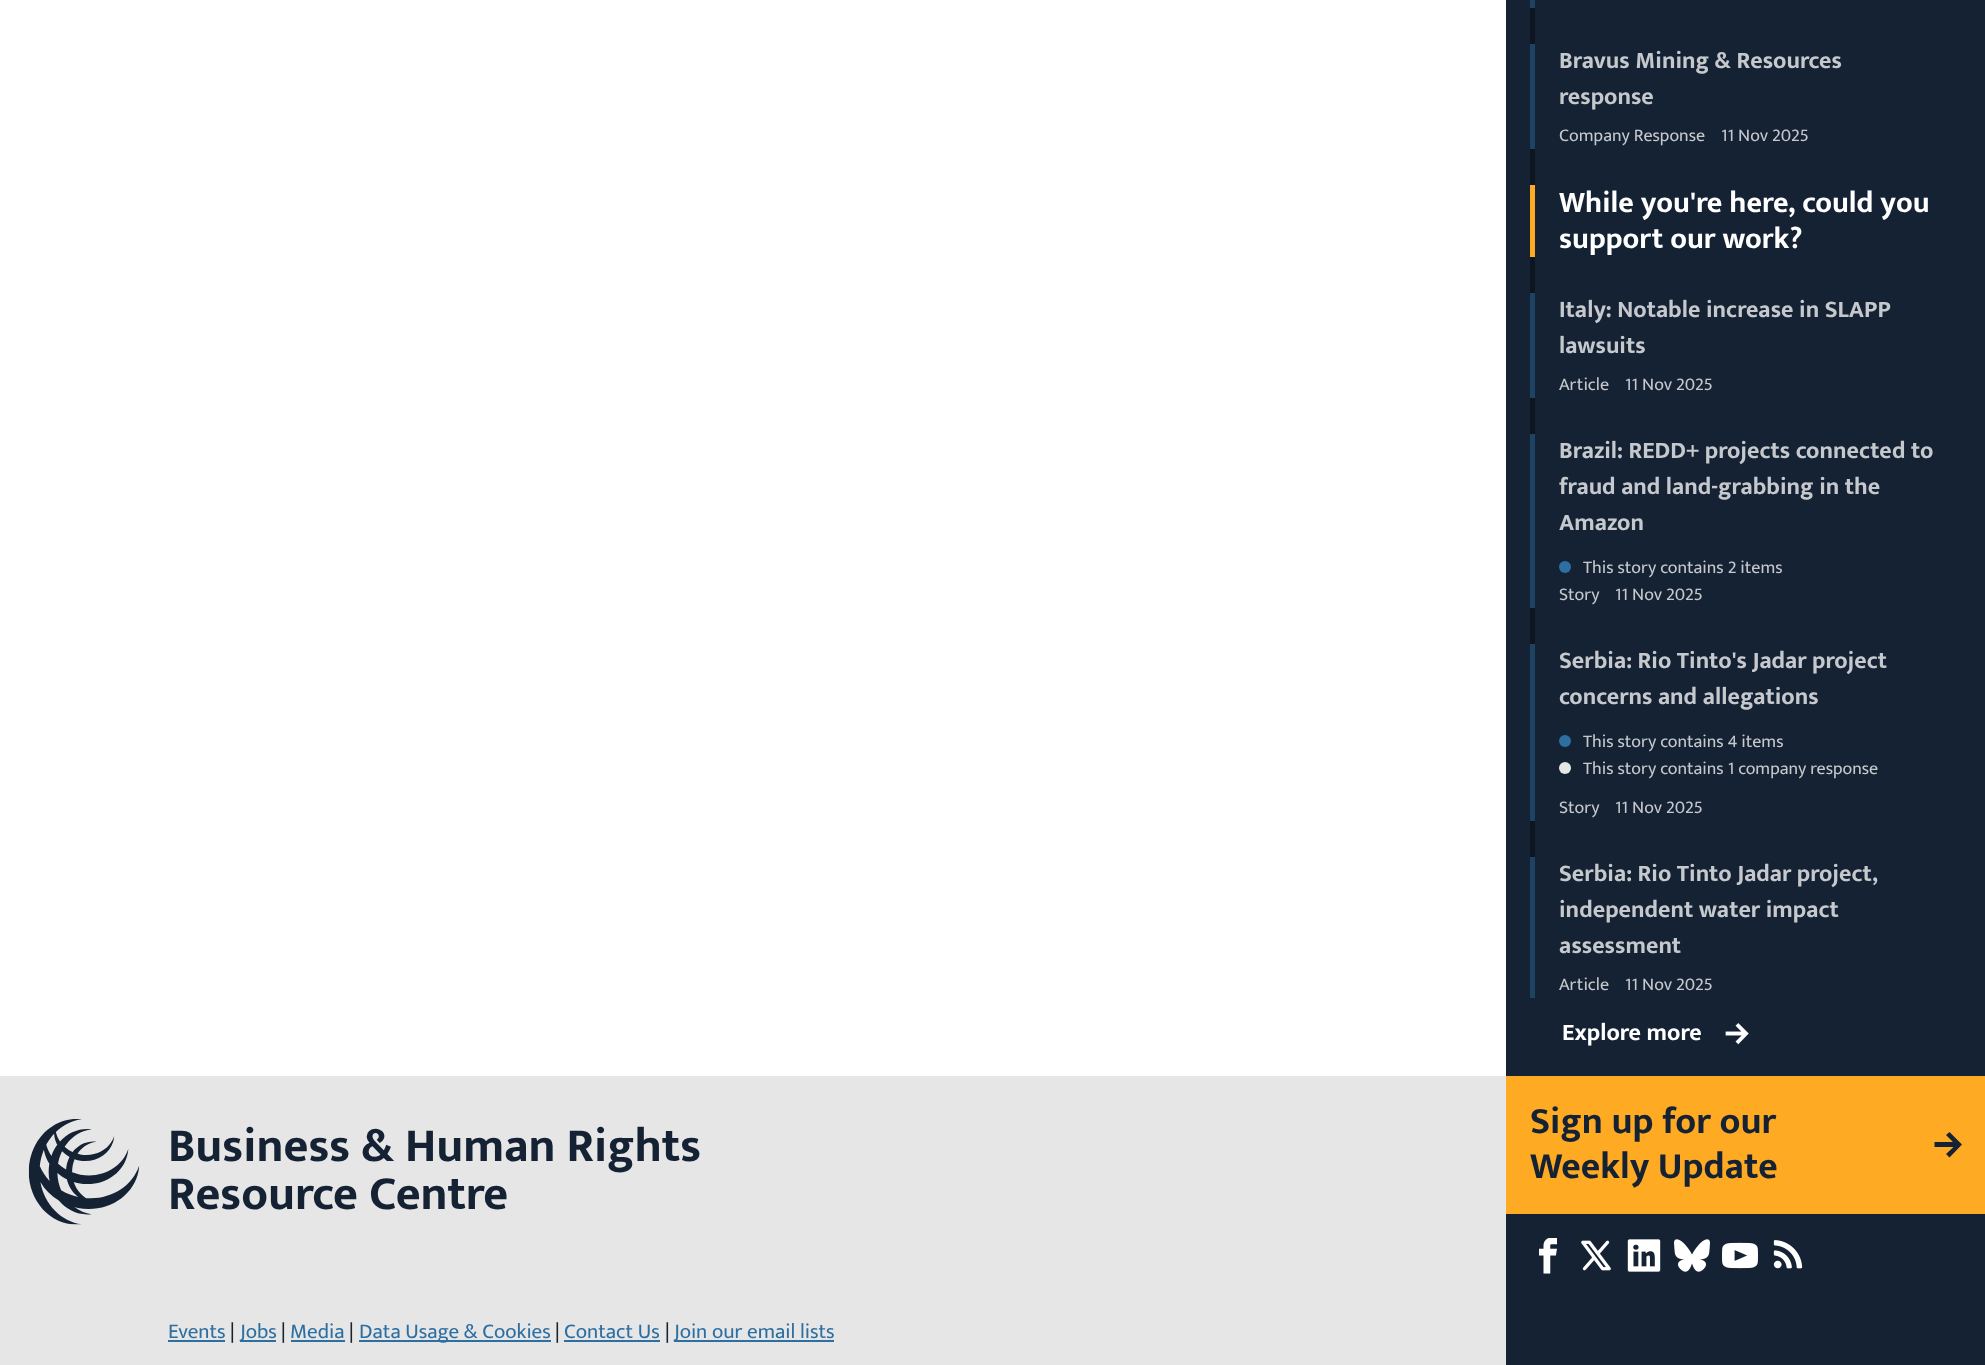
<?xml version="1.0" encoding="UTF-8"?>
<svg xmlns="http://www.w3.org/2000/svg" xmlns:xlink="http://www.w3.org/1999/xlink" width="1985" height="1365">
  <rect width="100%" height="100%" fill="#ffffff" />
  <rect x="1506" width="479" height="1076" fill="#152234" />
  <rect x="1530" width="5" height="857" fill="#0d1520" />
  <rect x="1530" width="5" height="8" fill="#1e4261" />
  <rect x="1530" y="44" width="5" height="105" fill="#1e4261" />
  <rect x="1530" y="185" width="5" height="72" fill="#ffaa23" />
  <rect x="1530" y="293" width="5" height="105" fill="#1e4261" />
  <rect x="1530" y="434" width="5" height="174" fill="#1e4261" />
  <circle cx="1565" cy="567" r="6" fill="#2e6fa1" />
  <rect x="1530" y="644" width="5" height="177" fill="#1e4261" />
  <circle cx="1565" cy="741" r="6" fill="#2e6fa1" />
  <circle cx="1565" cy="768" r="6" fill="#e6e6e6" />
  <rect x="1530" y="857" width="5" height="141" fill="#1e4261" />
  <image x="1725" y="1023" width="24" height="22" xlink:href="image1.png" />
  <rect y="1076" width="1506" height="289" fill="#e6e6e6" />
  <image x="28" y="1119" width="112" height="106" xlink:href="image2.png" />
  <rect x="168" y="1340" width="57" height="2" fill="#2e6fa1" />
  <rect x="240" y="1340" width="36" height="2" fill="#2e6fa1" />
  <rect x="291" y="1340" width="54" height="2" fill="#2e6fa1" />
  <rect x="359" y="1340" width="192" height="2" fill="#2e6fa1" />
  <rect x="564" y="1340" width="96" height="2" fill="#2e6fa1" />
  <rect x="674" y="1340" width="160" height="2" fill="#2e6fa1" />
  <rect x="1506" y="1214" width="479" height="151" fill="#152234" />
  <rect x="1506" y="1076" width="479" height="138" fill="#ffaa23" />
  <path d="M 1949.5 1132 l 12.5 12.5 l -12.5 13 l -3.5 -3.5 l 7.5 -7 h -19 v -5 h 18.5 l -7 -7 z" fill="#152234" />
  <image x="1539" y="1238" width="18" height="36" xlink:href="image3.png" />
  <image x="1581" y="1240" width="30" height="31" xlink:href="image4.png" />
  <image x="1627" y="1239" width="34" height="33" xlink:href="image5.png" />
  <image x="1674" y="1239" width="36" height="33" xlink:href="image6.png" />
  <image x="1722" y="1242" width="36" height="27" xlink:href="image7.png" />
  <image x="1773" y="1240" width="30" height="29" xlink:href="image8.png" />
  <text x="1559" y="68" style="font-family: Mukta; font-size: 24px; font-weight: bold; fill: #c5c8cc">Bravus Mining &amp; Resources</text>
  <text x="1559" y="104" style="font-family: Mukta; font-size: 24px; font-weight: bold; fill: #c5c8cc">response</text>
  <text x="1559" y="141" style="font-family: Mukta; font-size: 18px; fill: #c5c8cc">Company Response</text>
  <text x="1721" y="141" style="font-family: Mukta; font-size: 18px; fill: #c5c8cc">11 Nov 2025</text>
  <text x="1559" y="212" style="font-family: Mukta; font-size: 30px; font-weight: bold; fill: #ffffff">While you're here, could you</text>
  <text x="1559" y="248" style="font-family: Mukta; font-size: 30px; font-weight: bold; fill: #ffffff">support our work?</text>
  <text x="1559" y="317" style="font-family: Mukta; font-size: 24px; font-weight: bold; fill: #c5c8cc">Italy: Notable increase in SLAPP</text>
  <text x="1559" y="353" style="font-family: Mukta; font-size: 24px; font-weight: bold; fill: #c5c8cc">lawsuits</text>
  <text x="1559" y="390" style="font-family: Mukta; font-size: 18px; fill: #c5c8cc">Article</text>
  <text x="1625" y="390" style="font-family: Mukta; font-size: 18px; fill: #c5c8cc">11 Nov 2025</text>
  <text x="1559" y="458" style="font-family: Mukta; font-size: 24px; font-weight: bold; fill: #c5c8cc">Brazil: REDD+ projects connected to</text>
  <text x="1559" y="494" style="font-family: Mukta; font-size: 24px; font-weight: bold; fill: #c5c8cc">fraud and land-grabbing in the</text>
  <text x="1559" y="530" style="font-family: Mukta; font-size: 24px; font-weight: bold; fill: #c5c8cc">Amazon</text>
  <text x="1583" y="573" style="font-family: Mukta; font-size: 18px; fill: #c5c8cc">This story contains 2 items</text>
  <text x="1559" y="600" style="font-family: Mukta; font-size: 18px; fill: #c5c8cc">Story</text>
  <text x="1615" y="600" style="font-family: Mukta; font-size: 18px; fill: #c5c8cc">11 Nov 2025</text>
  <text x="1559" y="668" style="font-family: Mukta; font-size: 24px; font-weight: bold; fill: #c5c8cc">Serbia: Rio Tinto's Jadar project</text>
  <text x="1559" y="704" style="font-family: Mukta; font-size: 24px; font-weight: bold; fill: #c5c8cc">concerns and allegations</text>
  <text x="1583" y="747" style="font-family: Mukta; font-size: 18px; fill: #c5c8cc">This story contains 4 items</text>
  <text x="1583" y="774" style="font-family: Mukta; font-size: 18px; fill: #c5c8cc">This story contains 1 company response</text>
  <text x="1559" y="813" style="font-family: Mukta; font-size: 18px; fill: #c5c8cc">Story</text>
  <text x="1615" y="813" style="font-family: Mukta; font-size: 18px; fill: #c5c8cc">11 Nov 2025</text>
  <text x="1559" y="881" style="font-family: Mukta; font-size: 24px; font-weight: bold; fill: #c5c8cc">Serbia: Rio Tinto Jadar project,</text>
  <text x="1559" y="917" style="font-family: Mukta; font-size: 24px; font-weight: bold; fill: #c5c8cc">independent water impact</text>
  <text x="1559" y="953" style="font-family: Mukta; font-size: 24px; font-weight: bold; fill: #c5c8cc">assessment</text>
  <text x="1559" y="990" style="font-family: Mukta; font-size: 18px; fill: #c5c8cc">Article</text>
  <text x="1625" y="990" style="font-family: Mukta; font-size: 18px; fill: #c5c8cc">11 Nov 2025</text>
  <text x="1562" y="1040" style="font-family: Mukta; font-size: 24px; font-weight: bold; fill: #ffffff">Explore more</text>
  <text x="168" y="1161" style="font-family: Mukta; font-size: 48px; font-weight: bold; fill: #152234">Business &amp; Human Rights</text>
  <text x="168" y="1209" style="font-family: Mukta; font-size: 48px; font-weight: bold; fill: #152234">Resource Centre</text>
  <text x="168" y="1338" style="font-family: Mukta; font-size: 21px; fill: #2e6fa1">Events</text>
  <text x="230" y="1338" style="font-family: Mukta; font-size: 21px; fill: #152234">|</text>
  <text x="240" y="1338" style="font-family: Mukta; font-size: 21px; fill: #2e6fa1">Jobs</text>
  <text x="281" y="1338" style="font-family: Mukta; font-size: 21px; fill: #152234">|</text>
  <text x="290" y="1338" style="font-family: Mukta; font-size: 21px; fill: #2e6fa1">Media</text>
  <text x="349" y="1338" style="font-family: Mukta; font-size: 21px; fill: #152234">|</text>
  <text x="359" y="1338" style="font-family: Mukta; font-size: 21px; fill: #2e6fa1">Data Usage &amp; Cookies</text>
  <text x="555" y="1338" style="font-family: Mukta; font-size: 21px; fill: #152234">|</text>
  <text x="564" y="1338" style="font-family: Mukta; font-size: 21px; fill: #2e6fa1">Contact Us</text>
  <text x="665" y="1338" style="font-family: Mukta; font-size: 21px; fill: #152234">|</text>
  <text x="674" y="1338" style="font-family: Mukta; font-size: 21px; fill: #2e6fa1">Join our email lists</text>
  <text x="1530" y="1133" style="font-family: Mukta; font-size: 37.5px; font-weight: bold; fill: #152234">Sign up for our</text>
  <text x="1530" y="1178" style="font-family: Mukta; font-size: 37.5px; font-weight: bold; fill: #152234">Weekly Update</text>
</svg>
